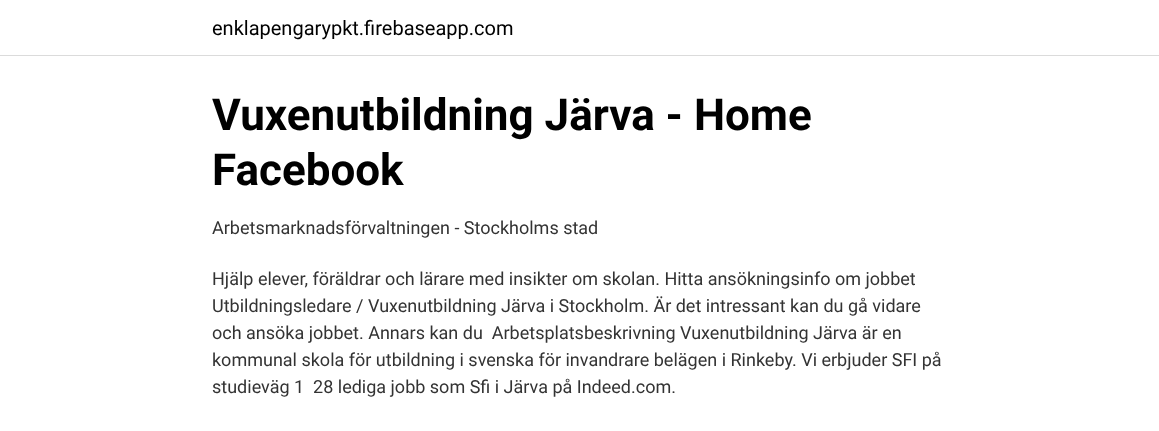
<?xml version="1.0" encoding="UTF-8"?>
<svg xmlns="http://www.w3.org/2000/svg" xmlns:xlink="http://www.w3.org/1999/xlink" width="1159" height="431">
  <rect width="100%" height="100%" fill="#ffffff" />
  <rect y="55" width="1159" height="1" fill="#dbdbdb" />
  <text x="212" y="35" style="font-family: Roboto; font-size: 20px; fill: #000000">enklapengarypkt.firebaseapp.com</text>
  <text x="212" y="130" style="font-family: Roboto; font-size: 44px; font-weight: bold; fill: #000000">Vuxenutbildning Järva - Home</text>
  <text x="212" y="185" style="font-family: Roboto; font-size: 44px; font-weight: bold; fill: #000000">Facebook</text>
  <text x="212" y="234" style="font-family: Roboto; font-size: 18px; fill: #333333">Arbetsmarknadsförvaltningen - Stockholms stad</text>
  <text x="212" y="285" style="font-family: Roboto; font-size: 18px; fill: #333333">Hjälp elever, föräldrar och lärare med insikter om skolan. Hitta ansökningsinfo om jobbet</text>
  <text x="212" y="312" style="font-family: Roboto; font-size: 18px; fill: #333333">Utbildningsledare / Vuxenutbildning Järva i Stockholm. Är det intressant kan du gå vidare</text>
  <text x="212" y="339" style="font-family: Roboto; font-size: 18px; fill: #333333" xml:space="preserve">och ansöka jobbet. Annars kan du  Arbetsplatsbeskrivning Vuxenutbildning Järva är en</text>
  <text x="212" y="366" style="font-family: Roboto; font-size: 18px; fill: #333333">kommunal skola för utbildning i svenska för invandrare belägen i Rinkeby. Vi erbjuder SFI på</text>
  <text x="212" y="393" style="font-family: Roboto; font-size: 18px; fill: #333333" xml:space="preserve">studieväg 1  28 lediga jobb som Sfi i Järva på Indeed.com.</text>
</svg>
